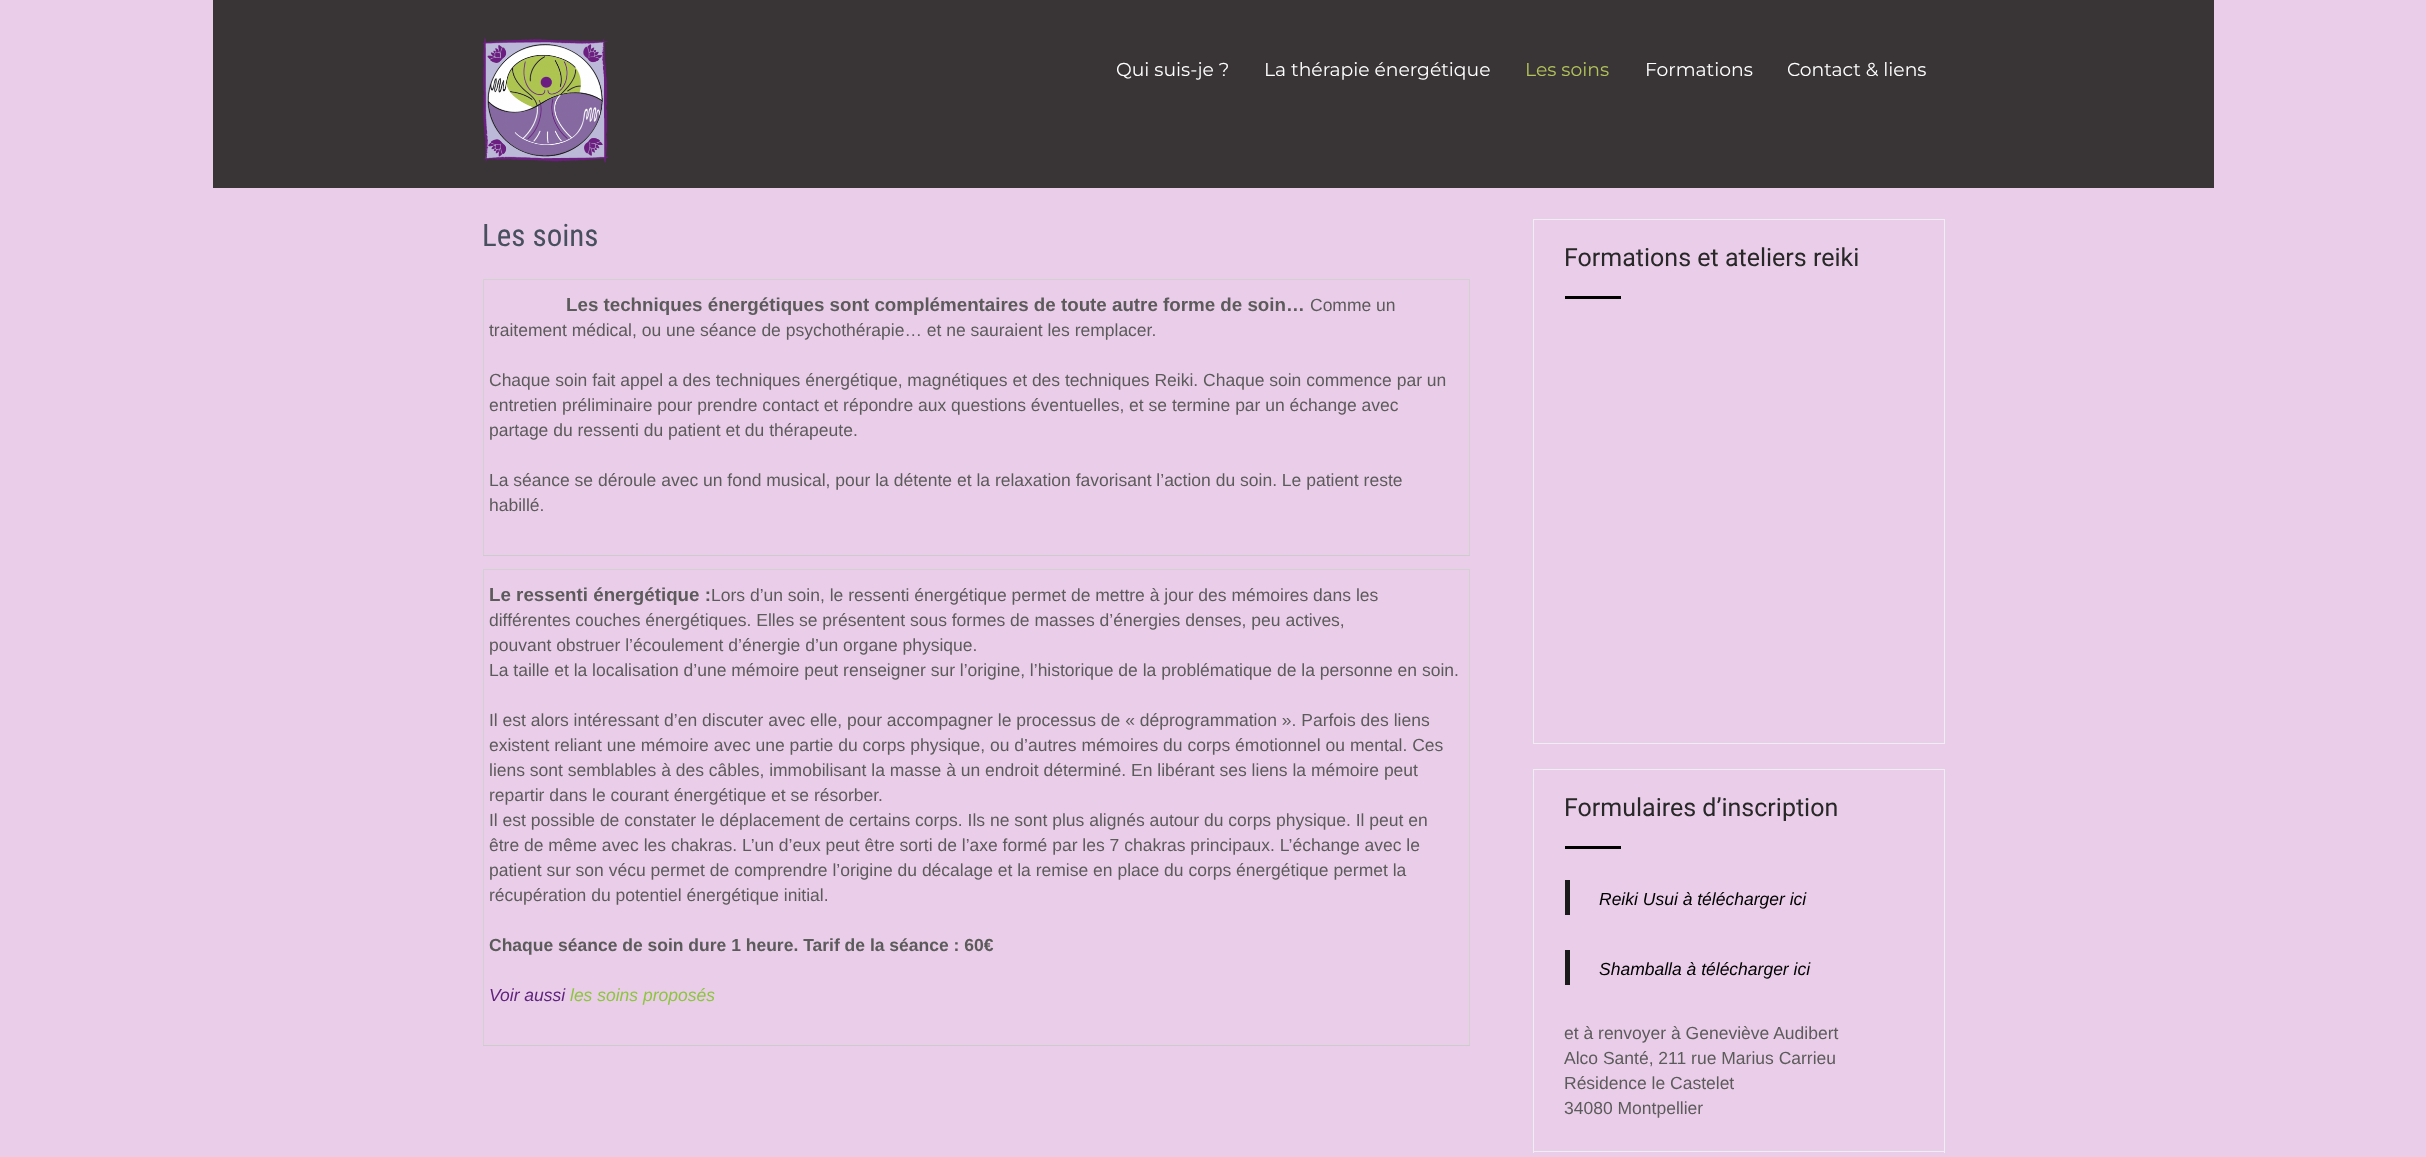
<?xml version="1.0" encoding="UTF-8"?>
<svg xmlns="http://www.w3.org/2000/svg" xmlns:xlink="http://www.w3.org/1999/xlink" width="2426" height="1157">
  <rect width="100%" height="100%" fill="#eacee9" />
  <rect x="213" width="2001" height="188" fill="#393536" />
  <image x="482" y="37" width="127" height="126" xlink:href="image1.png" />
  <rect x="483" y="279" width="987" height="1" fill="#d1d1d1" />
  <rect x="483" y="279" width="1" height="277" fill="#d1d1d1" />
  <rect x="1469" y="279" width="1" height="277" fill="#d1d1d1" />
  <rect x="483" y="555" width="987" height="1" fill="#cccccc" />
  <rect x="483" y="569" width="987" height="1" fill="#d1d1d1" />
  <rect x="483" y="569" width="1" height="477" fill="#d1d1d1" />
  <rect x="1469" y="569" width="1" height="477" fill="#d1d1d1" />
  <rect x="483" y="1045" width="987" height="1" fill="#cccccc" />
  <rect x="1533" y="219" width="412" height="1" fill="#eeeff5" />
  <rect x="1944" y="219" width="1" height="525" fill="#eeeff5" />
  <rect x="1533" y="219" width="1" height="111" fill="#eeeff5" />
  <rect x="1565" y="296" width="56" height="3" fill="#000000" />
  <rect x="1533" y="743" width="412" height="1" fill="#eeeff5" />
  <rect x="1533" y="330" width="1" height="414" fill="#eeeff5" />
  <rect x="1533" y="769" width="412" height="1" fill="#eeeff5" />
  <rect x="1944" y="769" width="1" height="384" fill="#eeeff5" />
  <rect x="1533" y="769" width="1" height="111" fill="#eeeff5" />
  <rect x="1565" y="846" width="56" height="3" fill="#000000" />
  <rect x="1533" y="1151" width="412" height="1" fill="#eeeff5" />
  <rect x="1533" y="880" width="1" height="273" fill="#eeeff5" />
  <rect x="1565" y="880" width="5" height="35" fill="#1a1a1a" />
  <rect x="1565" y="950" width="5" height="35" fill="#1a1a1a" />
  <text x="1116" y="76" style="font-family: Montserrat; font-size: 18.75px; fill: #ffffff">Qui suis-je ?</text>
  <text x="1264" y="76" style="font-family: Montserrat; font-size: 18.75px; fill: #ffffff">La thérapie énergétique</text>
  <text x="1525" y="76" style="font-family: Montserrat; font-size: 18.75px; fill: #b3c259">Les soins</text>
  <text x="1645" y="76" style="font-family: Montserrat; font-size: 18.75px; fill: #ffffff">Formations</text>
  <text x="1787" y="76" style="font-family: Montserrat; font-size: 18.75px; fill: #ffffff">Contact &amp; liens</text>
  <text x="482" y="246" style="font-family: Roboto Condensed; font-size: 31px; fill: #484f5e">Les soins</text>
  <text x="566" y="311" style="font-family: Liberation Sans; font-size: 18.75px; font-weight: bold; fill: #5c5b5b">Les techniques énergétiques sont complémentaires de toute autre forme de soin…</text>
  <text x="1310" y="311" style="font-family: Liberation Sans; font-size: 17.5px; fill: #5c5b5b">Comme un</text>
  <text x="489" y="336" style="font-family: Liberation Sans; font-size: 17.5px; fill: #5c5b5b">traitement médical, ou une séance de psychothérapie… et ne sauraient les remplacer.</text>
  <text x="489" y="386" style="font-family: Liberation Sans; font-size: 17.5px; fill: #5c5b5b">Chaque soin fait appel a des techniques énergétique, magnétiques et des techniques Reiki. Chaque soin commence par un</text>
  <text x="489" y="411" style="font-family: Liberation Sans; font-size: 17.5px; fill: #5c5b5b">entretien préliminaire pour prendre contact et répondre aux questions éventuelles, et se termine par un échange avec</text>
  <text x="489" y="436" style="font-family: Liberation Sans; font-size: 17.5px; fill: #5c5b5b">partage du ressenti du patient et du thérapeute.</text>
  <text x="489" y="486" style="font-family: Liberation Sans; font-size: 17.5px; fill: #5c5b5b">La séance se déroule avec un fond musical, pour la détente et la relaxation favorisant l’action du soin. Le patient reste</text>
  <text x="489" y="511" style="font-family: Liberation Sans; font-size: 17.5px; fill: #5c5b5b">habillé.</text>
  <text x="489" y="601" style="font-family: Liberation Sans; font-size: 18.75px; font-weight: bold; fill: #5c5b5b">Le ressenti énergétique :</text>
  <text x="711" y="601" style="font-family: Liberation Sans; font-size: 17.5px; fill: #5c5b5b">Lors d’un soin, le ressenti énergétique permet de mettre à jour des mémoires dans les</text>
  <text x="489" y="626" style="font-family: Liberation Sans; font-size: 17.5px; fill: #5c5b5b">différentes couches énergétiques. Elles se présentent sous formes de masses d’énergies denses, peu actives,</text>
  <text x="489" y="651" style="font-family: Liberation Sans; font-size: 17.5px; fill: #5c5b5b">pouvant obstruer l’écoulement d’énergie d’un organe physique.</text>
  <text x="489" y="676" style="font-family: Liberation Sans; font-size: 17.5px; fill: #5c5b5b">La taille et la localisation d’une mémoire peut renseigner sur l’origine, l’historique de la problématique de la personne en soin.</text>
  <text x="489" y="726" style="font-family: Liberation Sans; font-size: 17.5px; fill: #5c5b5b">Il est alors intéressant d’en discuter avec elle, pour accompagner le processus de « déprogrammation ». Parfois des liens</text>
  <text x="489" y="751" style="font-family: Liberation Sans; font-size: 17.5px; fill: #5c5b5b">existent reliant une mémoire avec une partie du corps physique, ou d’autres mémoires du corps émotionnel ou mental. Ces</text>
  <text x="489" y="776" style="font-family: Liberation Sans; font-size: 17.5px; fill: #5c5b5b">liens sont semblables à des câbles, immobilisant la masse à un endroit déterminé. En libérant ses liens la mémoire peut</text>
  <text x="489" y="801" style="font-family: Liberation Sans; font-size: 17.5px; fill: #5c5b5b">repartir dans le courant énergétique et se résorber.</text>
  <text x="489" y="826" style="font-family: Liberation Sans; font-size: 17.5px; fill: #5c5b5b">Il est possible de constater le déplacement de certains corps. Ils ne sont plus alignés autour du corps physique. Il peut en</text>
  <text x="489" y="851" style="font-family: Liberation Sans; font-size: 17.5px; fill: #5c5b5b">être de même avec les chakras. L’un d’eux peut être sorti de l’axe formé par les 7 chakras principaux. L’échange avec le</text>
  <text x="489" y="876" style="font-family: Liberation Sans; font-size: 17.5px; fill: #5c5b5b">patient sur son vécu permet de comprendre l’origine du décalage et la remise en place du corps énergétique permet la</text>
  <text x="489" y="901" style="font-family: Liberation Sans; font-size: 17.5px; fill: #5c5b5b">récupération du potentiel énergétique initial.</text>
  <text x="489" y="951" style="font-family: Liberation Sans; font-size: 17.5px; font-weight: bold; fill: #5c5b5b">Chaque séance de soin dure 1 heure. Tarif de la séance : 60€</text>
  <text x="489" y="1001" style="font-family: Liberation Sans; font-size: 17.5px; font-style: italic; fill: #5f247d">Voir aussi</text>
  <text x="570" y="1001" style="font-family: Liberation Sans; font-size: 17.5px; font-style: italic; fill: #8cc63e">les soins proposés</text>
  <text x="1564" y="266" style="font-family: Roboto; font-size: 25px; fill: #282828">Formations et ateliers reiki</text>
  <text x="1564" y="816" style="font-family: Roboto; font-size: 25px; fill: #282828">Formulaires d’inscription</text>
  <text x="1599" y="905" style="font-family: Liberation Sans; font-size: 17.5px; font-style: italic; fill: #000000">Reiki Usui à télécharger ici</text>
  <text x="1599" y="975" style="font-family: Liberation Sans; font-size: 17.5px; font-style: italic; fill: #000000">Shamballa à télécharger ici</text>
  <text x="1564" y="1039" style="font-family: Liberation Sans; font-size: 17.5px; fill: #5c5b5b">et à renvoyer à Geneviève Audibert</text>
  <text x="1564" y="1064" style="font-family: Liberation Sans; font-size: 17.5px; fill: #5c5b5b">Alco Santé, 211 rue Marius Carrieu</text>
  <text x="1564" y="1089" style="font-family: Liberation Sans; font-size: 17.5px; fill: #5c5b5b">Résidence le Castelet</text>
  <text x="1564" y="1114" style="font-family: Liberation Sans; font-size: 17.5px; fill: #5c5b5b">34080 Montpellier</text>
</svg>
